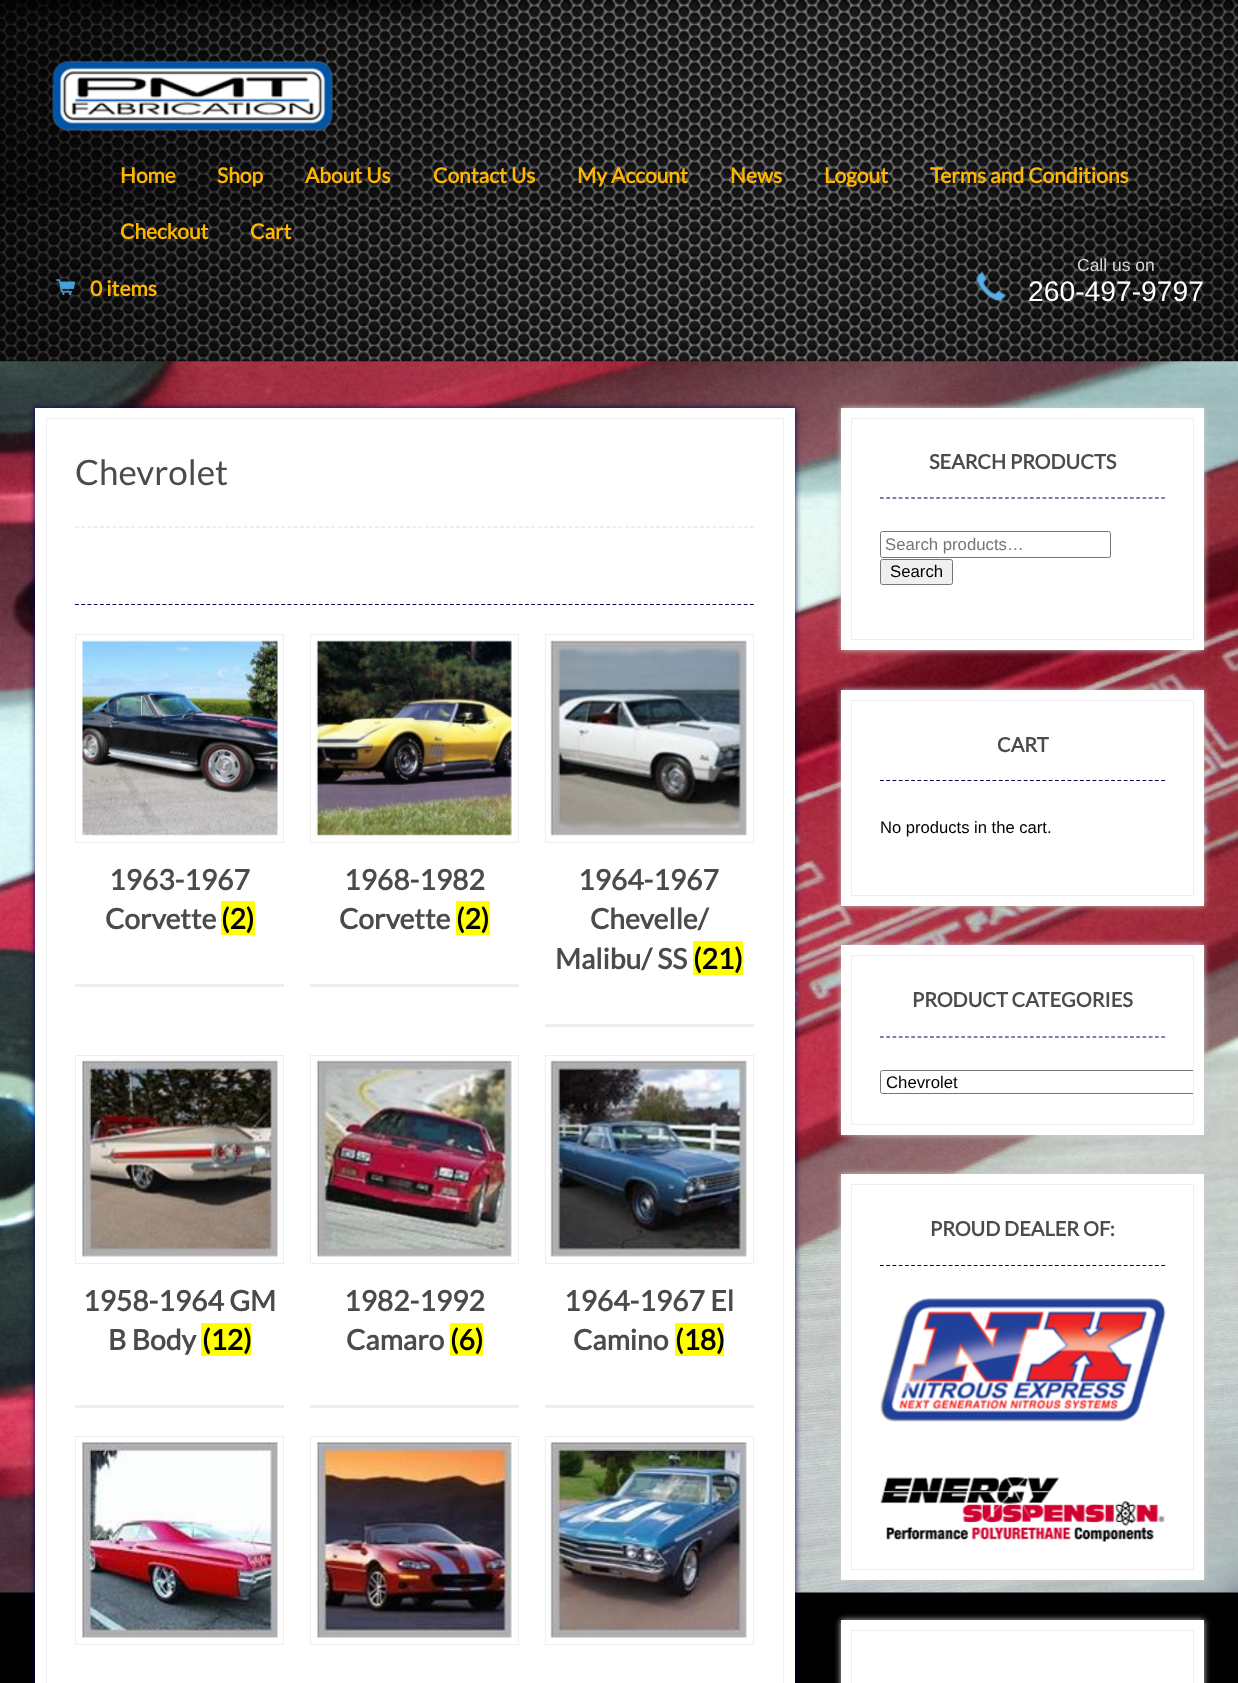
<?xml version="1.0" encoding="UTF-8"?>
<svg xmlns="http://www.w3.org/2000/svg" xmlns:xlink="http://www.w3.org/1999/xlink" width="1238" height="1683">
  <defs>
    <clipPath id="clip1"><rect x="853" y="956" width="340" height="168" /></clipPath>
  </defs>
  <rect width="100%" height="100%" fill="#000000" />
  <image x="0" y="361" width="1238" height="1232" xlink:href="image1.png" />
  <image x="0" y="0" width="1238" height="362" xlink:href="image2.png" />
  <image x="52" y="61" width="281" height="71" xlink:href="image3.png" />
  <image x="56" y="279" width="20" height="16" xlink:href="image4.png" />
  <image x="976" y="271" width="31" height="31" xlink:href="image5.png" />
  <rect x="35" y="408" width="760" height="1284" fill="#000153" filter="blur(3px)" />
  <rect x="35" y="408" width="760" height="1275" fill="#ffffff" />
  <rect x="46.5" y="418.5" width="737" height="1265" fill="none" stroke="#eeeeee" />
  <path d="M 75 604.5 h 679" fill="none" stroke="#000153" stroke-width="1.2" stroke-dasharray="3.75 2.5" />
  <path d="M 75 527 h 679" fill="none" stroke="#dddddd" stroke-width="1.2" stroke-dasharray="3.75 2.5" />
  <rect x="75" y="984" width="209" height="3" fill="#eeeeee" />
  <rect x="75.5" y="634.5" width="208" height="208" fill="none" stroke="#eeeeee" />
  <image x="82" y="640" width="196" height="196" xlink:href="image6.png" />
  <rect x="221" y="901" width="34" height="34" fill="#ffff00" />
  <rect x="310" y="984" width="209" height="3" fill="#eeeeee" />
  <rect x="310.5" y="634.5" width="208" height="208" fill="none" stroke="#eeeeee" />
  <image x="316" y="640" width="196" height="196" xlink:href="image7.png" />
  <rect x="456" y="901" width="34" height="34" fill="#ffff00" />
  <rect x="545" y="1024" width="209" height="3" fill="#eeeeee" />
  <rect x="545.5" y="634.5" width="208" height="208" fill="none" stroke="#eeeeee" />
  <image x="550" y="640" width="197" height="196" xlink:href="image8.png" />
  <rect x="693" y="941" width="50" height="34" fill="#ffff00" />
  <rect x="75" y="1405" width="209" height="3" fill="#eeeeee" />
  <rect x="75.5" y="1055.5" width="208" height="208" fill="none" stroke="#eeeeee" />
  <image x="82" y="1060" width="196" height="197" xlink:href="image9.png" />
  <rect x="201" y="1323" width="50" height="33" fill="#ffff00" />
  <rect x="310" y="1405" width="209" height="3" fill="#eeeeee" />
  <rect x="310.5" y="1055.5" width="208" height="208" fill="none" stroke="#eeeeee" />
  <image x="316" y="1060" width="196" height="197" xlink:href="image10.png" />
  <rect x="450" y="1323" width="33" height="33" fill="#ffff00" />
  <rect x="545" y="1405" width="209" height="3" fill="#eeeeee" />
  <rect x="545.5" y="1055.5" width="208" height="208" fill="none" stroke="#eeeeee" />
  <image x="550" y="1060" width="197" height="197" xlink:href="image11.png" />
  <rect x="675" y="1323" width="49" height="33" fill="#ffff00" />
  <rect x="75.5" y="1436.5" width="208" height="208" fill="none" stroke="#eeeeee" />
  <image x="82" y="1442" width="196" height="196" xlink:href="image12.png" />
  <rect x="310.5" y="1436.5" width="208" height="208" fill="none" stroke="#eeeeee" />
  <image x="316" y="1442" width="196" height="196" xlink:href="image13.png" />
  <rect x="545.5" y="1436.5" width="208" height="208" fill="none" stroke="#eeeeee" />
  <image x="550" y="1442" width="197" height="196" xlink:href="image14.png" />
  <rect x="841" y="408" width="363" height="242" fill="#cccccc" filter="blur(3px)" />
  <rect x="841" y="408" width="363" height="242" fill="#ffffff" />
  <rect x="851.5" y="418.5" width="342" height="221" fill="none" stroke="#eeeeee" />
  <path d="M 880 498 h 285" fill="none" stroke="#000153" stroke-width="1.2" stroke-dasharray="3.75 2.5" />
  <rect x="880.5" y="531.5" width="230" height="26" rx="2" fill="none" stroke="#767676" />
  <rect x="880.5" y="559.5" width="72" height="25" rx="2" fill="#efefef" stroke="#767676" />
  <rect x="841" y="690" width="363" height="216" fill="#cccccc" filter="blur(3px)" />
  <rect x="841" y="690" width="363" height="216" fill="#ffffff" />
  <rect x="851.5" y="700.5" width="342" height="195" fill="none" stroke="#eeeeee" />
  <path d="M 880 780.5 h 285" fill="none" stroke="#000153" stroke-width="1.2" stroke-dasharray="3.75 2.5" />
  <rect x="841" y="945" width="363" height="190" fill="#cccccc" filter="blur(3px)" />
  <rect x="841" y="945" width="363" height="190" fill="#ffffff" />
  <rect x="851.5" y="955.5" width="342" height="169" fill="none" stroke="#eeeeee" />
  <path d="M 880 1037 h 285" fill="none" stroke="#000153" stroke-width="1.2" stroke-dasharray="3.75 2.5" />
  <g clip-path="url(#clip1)">
    <rect x="880.5" y="1070.5" width="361" height="23" rx="2" fill="none" stroke="#767676" />
  </g>
  <rect x="841" y="1174" width="363" height="406" fill="#cccccc" filter="blur(3px)" />
  <rect x="841" y="1174" width="363" height="406" fill="#ffffff" />
  <rect x="851.5" y="1184.5" width="342" height="385" fill="none" stroke="#eeeeee" />
  <path d="M 880 1265.5 h 285" fill="none" stroke="#000153" stroke-width="1.2" stroke-dasharray="3.75 2.5" />
  <image x="880" y="1298" width="286" height="124" xlink:href="image15.png" />
  <image x="880" y="1477" width="285" height="65" xlink:href="image16.png" />
  <rect x="841" y="1620" width="363" height="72" fill="#cccccc" filter="blur(3px)" />
  <rect x="841" y="1620" width="363" height="63" fill="#ffffff" />
  <rect x="851.5" y="1630.5" width="342" height="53" fill="none" stroke="#eeeeee" />
  <text x="120" y="183" style="font-family: Lato; font-size: 21px; font-weight: bold; fill: #ffb600">Home</text>
  <text x="217" y="183" style="font-family: Lato; font-size: 21px; font-weight: bold; fill: #ffb600">Shop</text>
  <text x="305" y="183" style="font-family: Lato; font-size: 21px; font-weight: bold; fill: #ffb600">About Us</text>
  <text x="433" y="183" style="font-family: Lato; font-size: 21px; font-weight: bold; fill: #ffb600">Contact Us</text>
  <text x="577" y="183" style="font-family: Lato; font-size: 21px; font-weight: bold; fill: #ffb600">My Account</text>
  <text x="730" y="183" style="font-family: Lato; font-size: 21px; font-weight: bold; fill: #ffb600">News</text>
  <text x="824" y="183" style="font-family: Lato; font-size: 21px; font-weight: bold; fill: #ffb600">Logout</text>
  <text x="930" y="183" style="font-family: Lato; font-size: 21px; font-weight: bold; fill: #ffb600">Terms and Conditions</text>
  <text x="120" y="239" style="font-family: Lato; font-size: 21px; font-weight: bold; fill: #ffb600">Checkout</text>
  <text x="250" y="239" style="font-family: Lato; font-size: 21px; font-weight: bold; fill: #ffb600">Cart</text>
  <text x="90" y="296" style="font-family: Lato; font-size: 21px; font-weight: bold; fill: #ffb600">0 items</text>
  <text x="1077" y="271" style="font-family: Liberation Sans; font-size: 17.5px; fill: #d7d7d7">Call us on</text>
  <text x="1028" y="301" style="font-family: Liberation Sans; font-size: 28.25px; fill: #ffffff">260-497-9797</text>
  <text x="75" y="485" style="font-family: Lato; font-size: 35px; fill: #4b4b4b">Chevrolet</text>
  <text x="109" y="890" style="font-family: Lato; font-size: 28.25px; font-weight: bold; fill: #4b4b4b">1963-1967</text>
  <text x="105" y="929" style="font-family: Lato; font-size: 28.25px; font-weight: bold; fill: #4b4b4b">Corvette</text>
  <text x="221" y="929" style="font-family: Lato; font-size: 28.25px; font-weight: bold; fill: #000000">(2)</text>
  <text x="344" y="890" style="font-family: Lato; font-size: 28.25px; font-weight: bold; fill: #4b4b4b">1968-1982</text>
  <text x="339" y="929" style="font-family: Lato; font-size: 28.25px; font-weight: bold; fill: #4b4b4b">Corvette</text>
  <text x="456" y="929" style="font-family: Lato; font-size: 28.25px; font-weight: bold; fill: #000000">(2)</text>
  <text x="578" y="890" style="font-family: Lato; font-size: 28.25px; font-weight: bold; fill: #4b4b4b">1964-1967</text>
  <text x="590" y="929" style="font-family: Lato; font-size: 28.25px; font-weight: bold; fill: #4b4b4b">Chevelle/</text>
  <text x="555" y="969" style="font-family: Lato; font-size: 28.25px; font-weight: bold; fill: #4b4b4b">Malibu/ SS</text>
  <text x="693" y="969" style="font-family: Lato; font-size: 28.25px; font-weight: bold; fill: #000000">(21)</text>
  <text x="83" y="1311" style="font-family: Lato; font-size: 28.25px; font-weight: bold; fill: #4b4b4b">1958-1964 GM</text>
  <text x="108" y="1350" style="font-family: Lato; font-size: 28.25px; font-weight: bold; fill: #4b4b4b">B Body</text>
  <text x="202" y="1350" style="font-family: Lato; font-size: 28.25px; font-weight: bold; fill: #000000">(12)</text>
  <text x="344" y="1311" style="font-family: Lato; font-size: 28.25px; font-weight: bold; fill: #4b4b4b">1982-1992</text>
  <text x="346" y="1350" style="font-family: Lato; font-size: 28.25px; font-weight: bold; fill: #4b4b4b">Camaro</text>
  <text x="450" y="1350" style="font-family: Lato; font-size: 28.25px; font-weight: bold; fill: #000000">(6)</text>
  <text x="564" y="1311" style="font-family: Lato; font-size: 28.25px; font-weight: bold; fill: #4b4b4b">1964-1967 El</text>
  <text x="573" y="1350" style="font-family: Lato; font-size: 28.25px; font-weight: bold; fill: #4b4b4b">Camino</text>
  <text x="675" y="1350" style="font-family: Lato; font-size: 28.25px; font-weight: bold; fill: #000000">(18)</text>
  <text x="929" y="469" style="font-family: Lato; font-size: 20px; font-weight: bold; fill: #4b4b4b">SEARCH PRODUCTS</text>
  <text x="885" y="550" style="font-family: Liberation Sans; font-size: 16.75px; fill: #757575">Search products…</text>
  <text x="890" y="577" style="font-family: Liberation Sans; font-size: 16.75px; fill: #000000">Search</text>
  <text x="997" y="752" style="font-family: Lato; font-size: 20px; font-weight: bold; fill: #4b4b4b">CART</text>
  <text x="880" y="833" style="font-family: Liberation Sans; font-size: 16.6px; fill: #000000">No products in the cart.</text>
  <text x="912" y="1007" style="font-family: Lato; font-size: 20px; font-weight: bold; fill: #4b4b4b">PRODUCT CATEGORIES</text>
  <text x="886" y="1088" style="font-family: Liberation Sans; font-size: 16.75px; fill: #000000">Chevrolet</text>
  <text x="930" y="1236" style="font-family: Lato; font-size: 20px; font-weight: bold; fill: #4b4b4b">PROUD DEALER OF:</text>
</svg>
